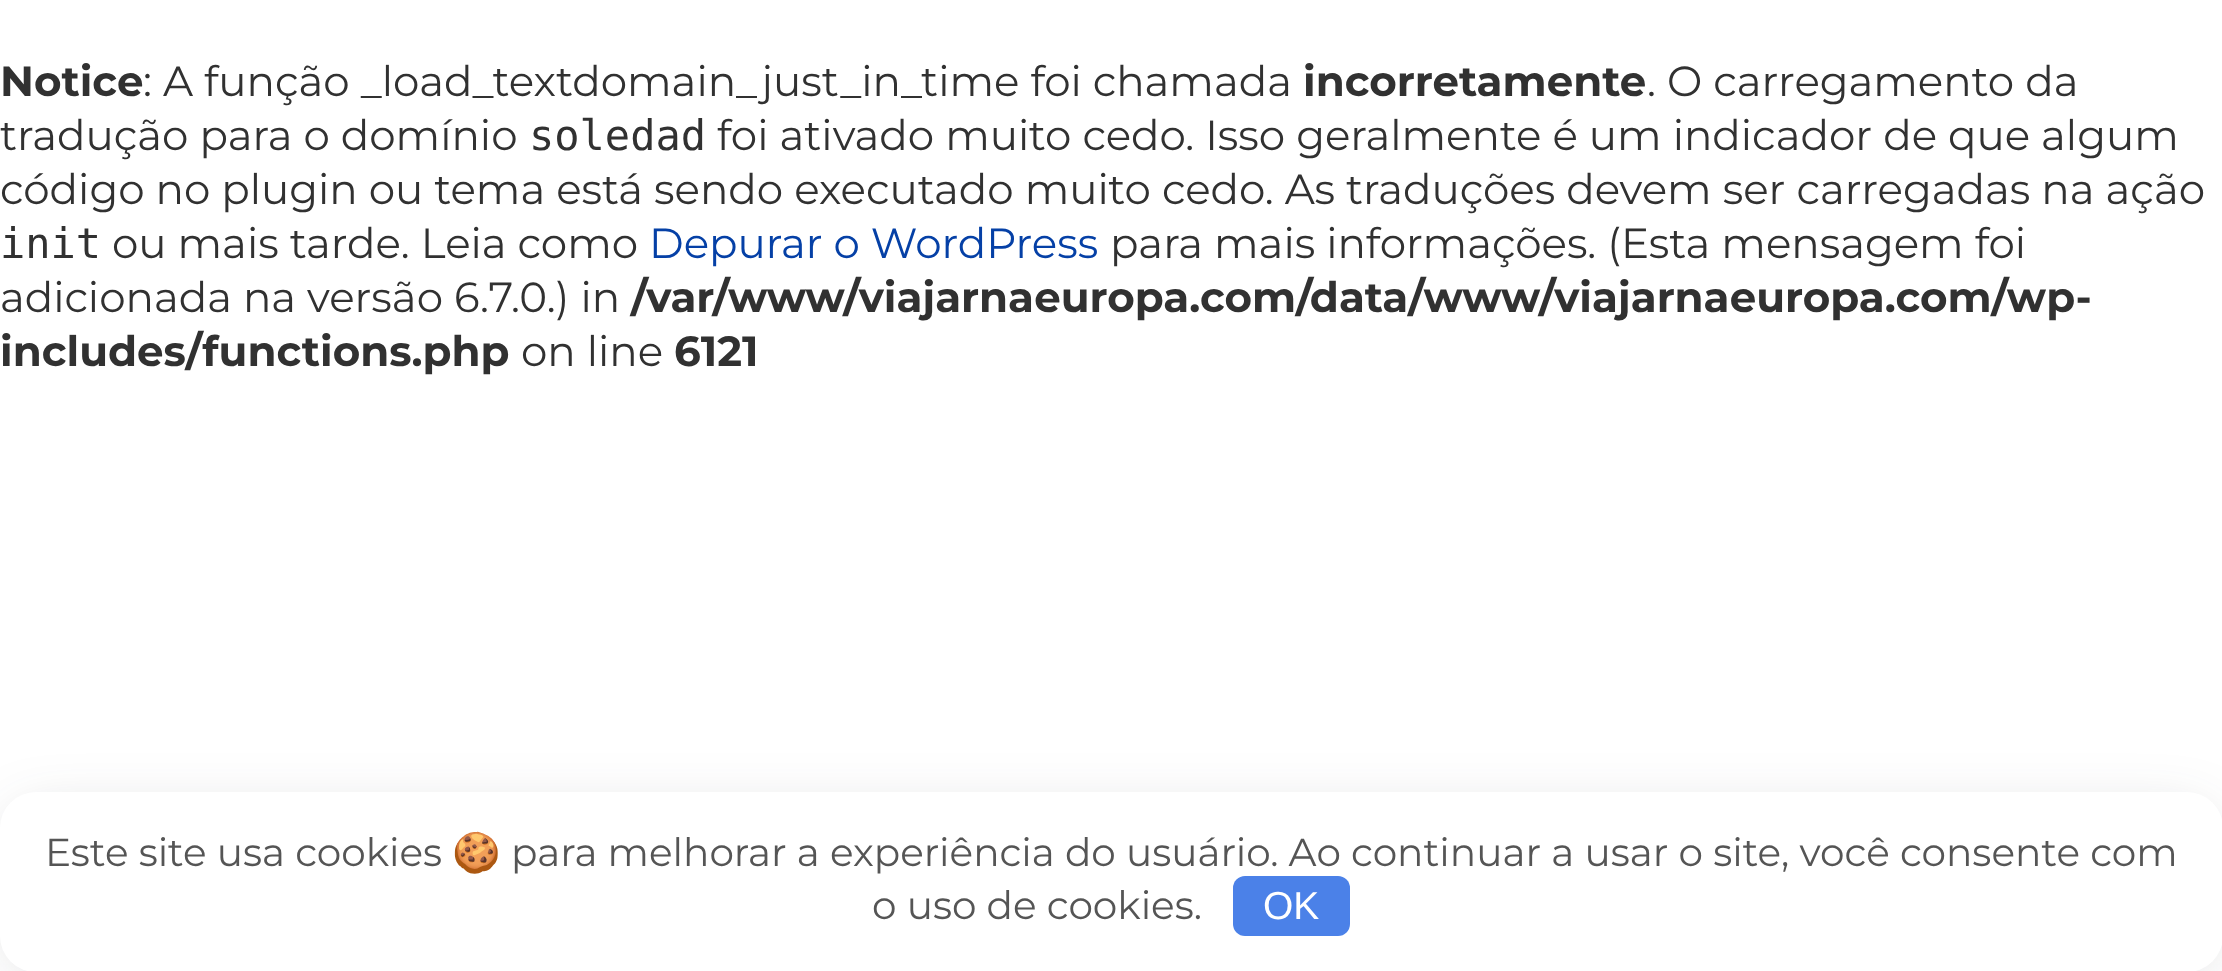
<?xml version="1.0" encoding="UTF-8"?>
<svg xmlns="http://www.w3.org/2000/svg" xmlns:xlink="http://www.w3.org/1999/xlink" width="2222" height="971">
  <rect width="100%" height="100%" fill="#ffffff" />
  <rect x="15" y="816" width="2193" height="150" rx="21" fill="#292c38" fill-opacity="0.2" filter="blur(30px)" />
  <rect y="792" width="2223" height="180" rx="36" fill="#ffffff" />
  <rect x="1233" y="876" width="117" height="60" rx="12" fill="#4b81e8" />
  <text x="0" y="96" style="font-family: Montserrat; font-size: 42px; font-weight: bold; fill: #313131">Notice</text>
  <text x="143" y="96" style="font-family: Montserrat; font-size: 42px; fill: #313131">: A função _load_textdomain_just_in_time foi chamada</text>
  <text x="1303" y="96" style="font-family: Montserrat; font-size: 42px; font-weight: bold; fill: #313131">incorretamente</text>
  <text x="1647" y="96" style="font-family: Montserrat; font-size: 42px; fill: #313131">. O carregamento da</text>
  <text x="0" y="150" style="font-family: Montserrat; font-size: 42px; fill: #313131">tradução para o domínio</text>
  <text x="529" y="150" style="font-family: DejaVu Sans Mono; font-size: 42px; fill: #313131">soledad</text>
  <text x="717" y="150" style="font-family: Montserrat; font-size: 42px; fill: #313131">foi ativado muito cedo. Isso geralmente é um indicador de que algum</text>
  <text x="0" y="204" style="font-family: Montserrat; font-size: 42px; fill: #313131">código no plugin ou tema está sendo executado muito cedo. As traduções devem ser carregadas na ação</text>
  <text x="0" y="258" style="font-family: DejaVu Sans Mono; font-size: 42px; fill: #313131">init</text>
  <text x="112" y="258" style="font-family: Montserrat; font-size: 42px; fill: #313131">ou mais tarde. Leia como</text>
  <text x="649" y="258" style="font-family: Montserrat; font-size: 42px; fill: #0540a6">Depurar o WordPress</text>
  <text x="1110" y="258" style="font-family: Montserrat; font-size: 42px; fill: #313131">para mais informações. (Esta mensagem foi</text>
  <text x="0" y="312" style="font-family: Montserrat; font-size: 42px; fill: #313131">adicionada na versão 6.7.0.) in</text>
  <text x="631" y="312" style="font-family: Montserrat; font-size: 42px; font-weight: bold; fill: #313131">/var/www/viajarnaeuropa.com/data/www/viajarnaeuropa.com/wp-</text>
  <text x="0" y="366" style="font-family: Montserrat; font-size: 42px; font-weight: bold; fill: #313131">includes/functions.php</text>
  <text x="521" y="366" style="font-family: Montserrat; font-size: 42px; fill: #313131">on line</text>
  <text x="674" y="366" style="font-family: Montserrat; font-size: 42px; font-weight: bold; fill: #313131">6121</text>
  <text x="45" y="866" style="font-family: Montserrat; font-size: 39px; fill: #555555">Este site usa cookies</text>
  <text x="452" y="866" style="font-family: Noto Color Emoji; font-size: 39px; fill: #555555">🍪</text>
  <text x="511" y="866" style="font-family: Montserrat; font-size: 39px; fill: #555555">para melhorar a experiência do usuário. Ao continuar a usar o site, você consente com</text>
  <text x="872" y="919" style="font-family: Montserrat; font-size: 39px; fill: #555555">o uso de cookies.</text>
  <text x="1263" y="919" style="font-family: Liberation Sans; font-size: 39px; fill: #ffffff">OK</text>
</svg>
